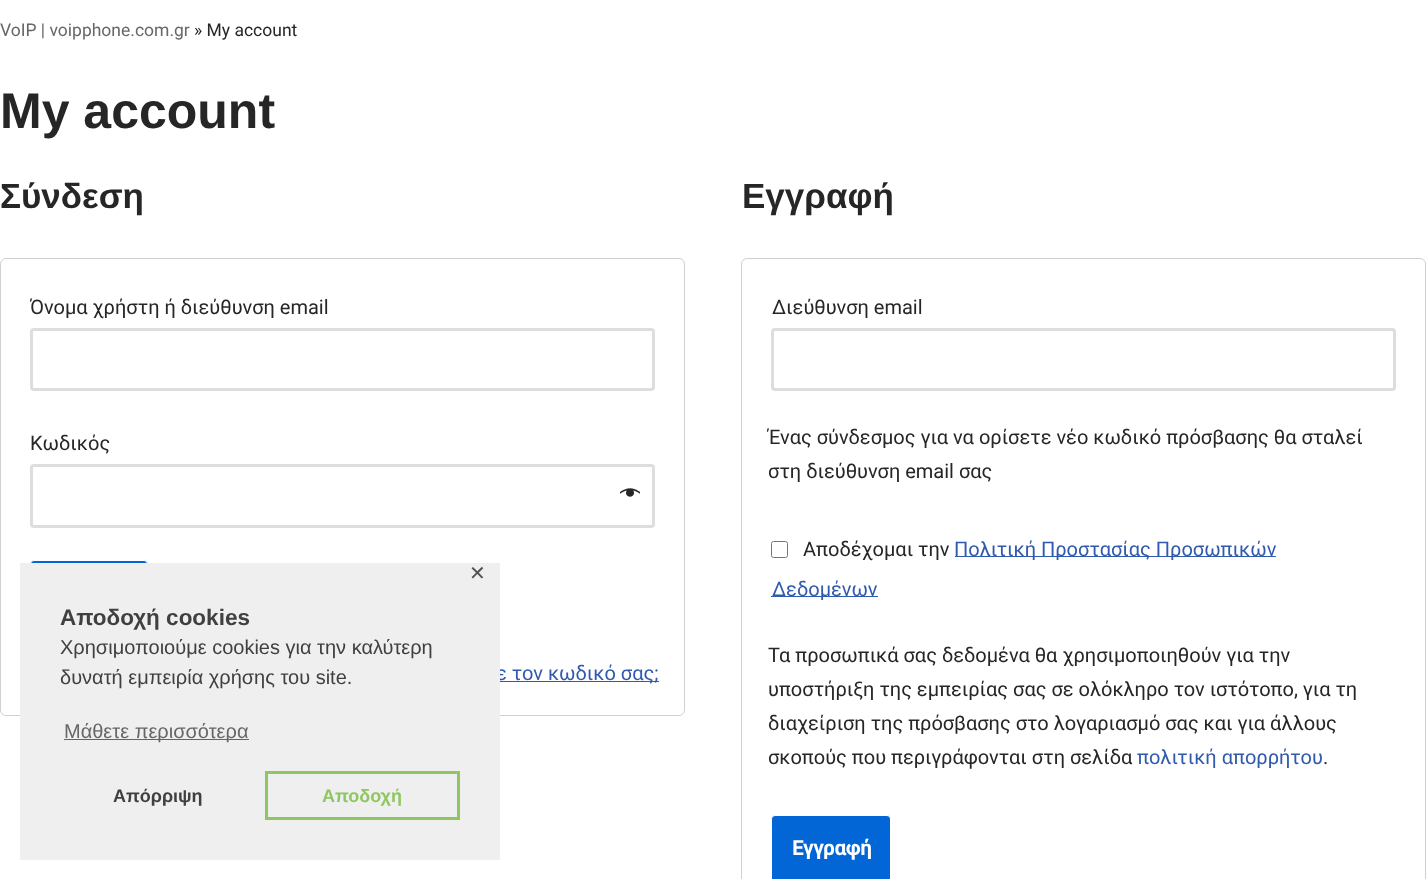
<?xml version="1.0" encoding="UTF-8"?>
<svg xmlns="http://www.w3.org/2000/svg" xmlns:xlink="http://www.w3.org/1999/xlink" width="1426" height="879">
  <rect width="100%" height="100%" fill="#ffffff" />
  <rect x="0.5" y="258.5" width="684" height="457" rx="5.5" fill="none" stroke="#d3ced2" />
  <rect x="31.5" y="329.5" width="622" height="60" rx="2.5" fill="none" stroke="#dddddd" stroke-width="3" />
  <rect x="31.5" y="465.5" width="622" height="61" rx="2.5" fill="none" stroke="#dddddd" stroke-width="3" />
  <image x="620" y="488" width="20" height="9" xlink:href="image1.png" />
  <rect x="30.5" y="560.5" width="117" height="67" rx="3.5" fill="#0366d6" stroke="#ffffff" />
  <rect x="500" y="681" width="159" height="1" fill="#2f5aae" />
  <rect x="741.5" y="258.5" width="684" height="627" rx="5.5" fill="none" stroke="#d3ced2" />
  <rect x="772.5" y="329.5" width="622" height="60" rx="2.5" fill="none" stroke="#dddddd" stroke-width="3" />
  <rect x="771.5" y="541.5" width="16" height="16" rx="2" fill="none" stroke="#767676" />
  <rect x="955" y="556" width="321" height="1" fill="#2f5aae" />
  <rect x="771" y="596" width="107" height="1" fill="#2f5aae" />
  <rect x="771.5" y="815.5" width="119" height="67" rx="3.5" fill="#0366d6" stroke="#ffffff" />
  <text x="0" y="36" style="font-family: Roboto; font-size: 17.5px; fill: #676767">VoIP | voipphone.com.gr</text>
  <text x="194" y="36" style="font-family: Roboto; font-size: 17.5px; fill: #272626">» My account</text>
  <text x="0" y="128" style="font-family: Liberation Sans; font-size: 50px; font-weight: bold; fill: #272626">My account</text>
  <text x="0" y="208" style="font-family: Liberation Sans; font-size: 35px; font-weight: bold; fill: #272626">Σύνδεση</text>
  <text x="30" y="314" style="font-family: Roboto; font-size: 20px; fill: #272626">Όνομα χρήστη ή διεύθυνση email</text>
  <text x="30" y="450" style="font-family: Roboto; font-size: 20px; fill: #272626">Κωδικός</text>
  <text x="496" y="680" style="font-family: Roboto; font-size: 20px; fill: #2f5aae">ε τον κωδικό σας;</text>
  <text x="742" y="208" style="font-family: Liberation Sans; font-size: 35px; font-weight: bold; fill: #272626">Εγγραφή</text>
  <text x="772" y="314" style="font-family: Roboto; font-size: 20px; fill: #272626">Διεύθυνση email</text>
  <text x="768" y="444" style="font-family: Roboto; font-size: 20px; fill: #272626">Ένας σύνδεσμος για να ορίσετε νέο κωδικό πρόσβασης θα σταλεί</text>
  <text x="768" y="478" style="font-family: Roboto; font-size: 20px; fill: #272626">στη διεύθυνση email σας</text>
  <text x="803" y="556" style="font-family: Roboto; font-size: 20px; fill: #272626">Αποδέχομαι την</text>
  <text x="954" y="556" style="font-family: Roboto; font-size: 20px; fill: #2f5aae">Πολιτική Προστασίας Προσωπικών</text>
  <text x="772" y="596" style="font-family: Roboto; font-size: 20px; fill: #2f5aae">Δεδομένων</text>
  <text x="768" y="662" style="font-family: Roboto; font-size: 20px; fill: #272626">Τα προσωπικά σας δεδομένα θα χρησιμοποιηθούν για την</text>
  <text x="768" y="696" style="font-family: Roboto; font-size: 20px; fill: #272626">υποστήριξη της εμπειρίας σας σε ολόκληρο τον ιστότοπο, για τη</text>
  <text x="768" y="730" style="font-family: Roboto; font-size: 20px; fill: #272626">διαχείριση της πρόσβασης στο λογαριασμό σας και για άλλους</text>
  <text x="768" y="764" style="font-family: Roboto; font-size: 20px; fill: #272626">σκοπούς που περιγράφονται στη σελίδα</text>
  <text x="1137" y="764" style="font-family: Roboto; font-size: 20px; fill: #2f5aae">πολιτική απορρήτου</text>
  <text x="1323" y="764" style="font-family: Roboto; font-size: 20px; fill: #272626">.</text>
  <text x="792" y="855" style="font-family: Roboto; font-size: 20px; font-weight: bold; fill: #ffffff">Εγγραφή</text>
  <rect x="20" y="563" width="480" height="297" fill="#efefef" />
  <text x="469" y="580" style="font-family: DejaVu Sans; font-size: 20px; fill: #525252">✕</text>
  <text x="60" y="625" style="font-family: Liberation Sans; font-size: 22.5px; font-weight: bold; fill: #404040">Αποδοχή cookies</text>
  <text x="60" y="654" style="font-family: Liberation Sans; font-size: 20px; fill: #404040">Χρησιμοποιούμε cookies για την καλύτερη</text>
  <text x="60" y="684" style="font-family: Liberation Sans; font-size: 20px; fill: #404040">δυνατή εμπειρία χρήσης του site.</text>
  <rect x="64" y="739" width="185" height="1" fill="#636363" />
  <text x="64" y="738" style="font-family: Liberation Sans; font-size: 20px; fill: #676767">Μάθετε περισσότερα</text>
  <text x="113" y="802" style="font-family: Liberation Sans; font-size: 18px; font-weight: bold; fill: #404040">Απόρριψη</text>
  <rect x="266.5" y="772.5" width="192" height="46" fill="none" stroke="#8ec760" stroke-width="3" />
  <text x="322" y="802" style="font-family: Liberation Sans; font-size: 18px; font-weight: bold; fill: #8ec760">Αποδοχή</text>
</svg>
